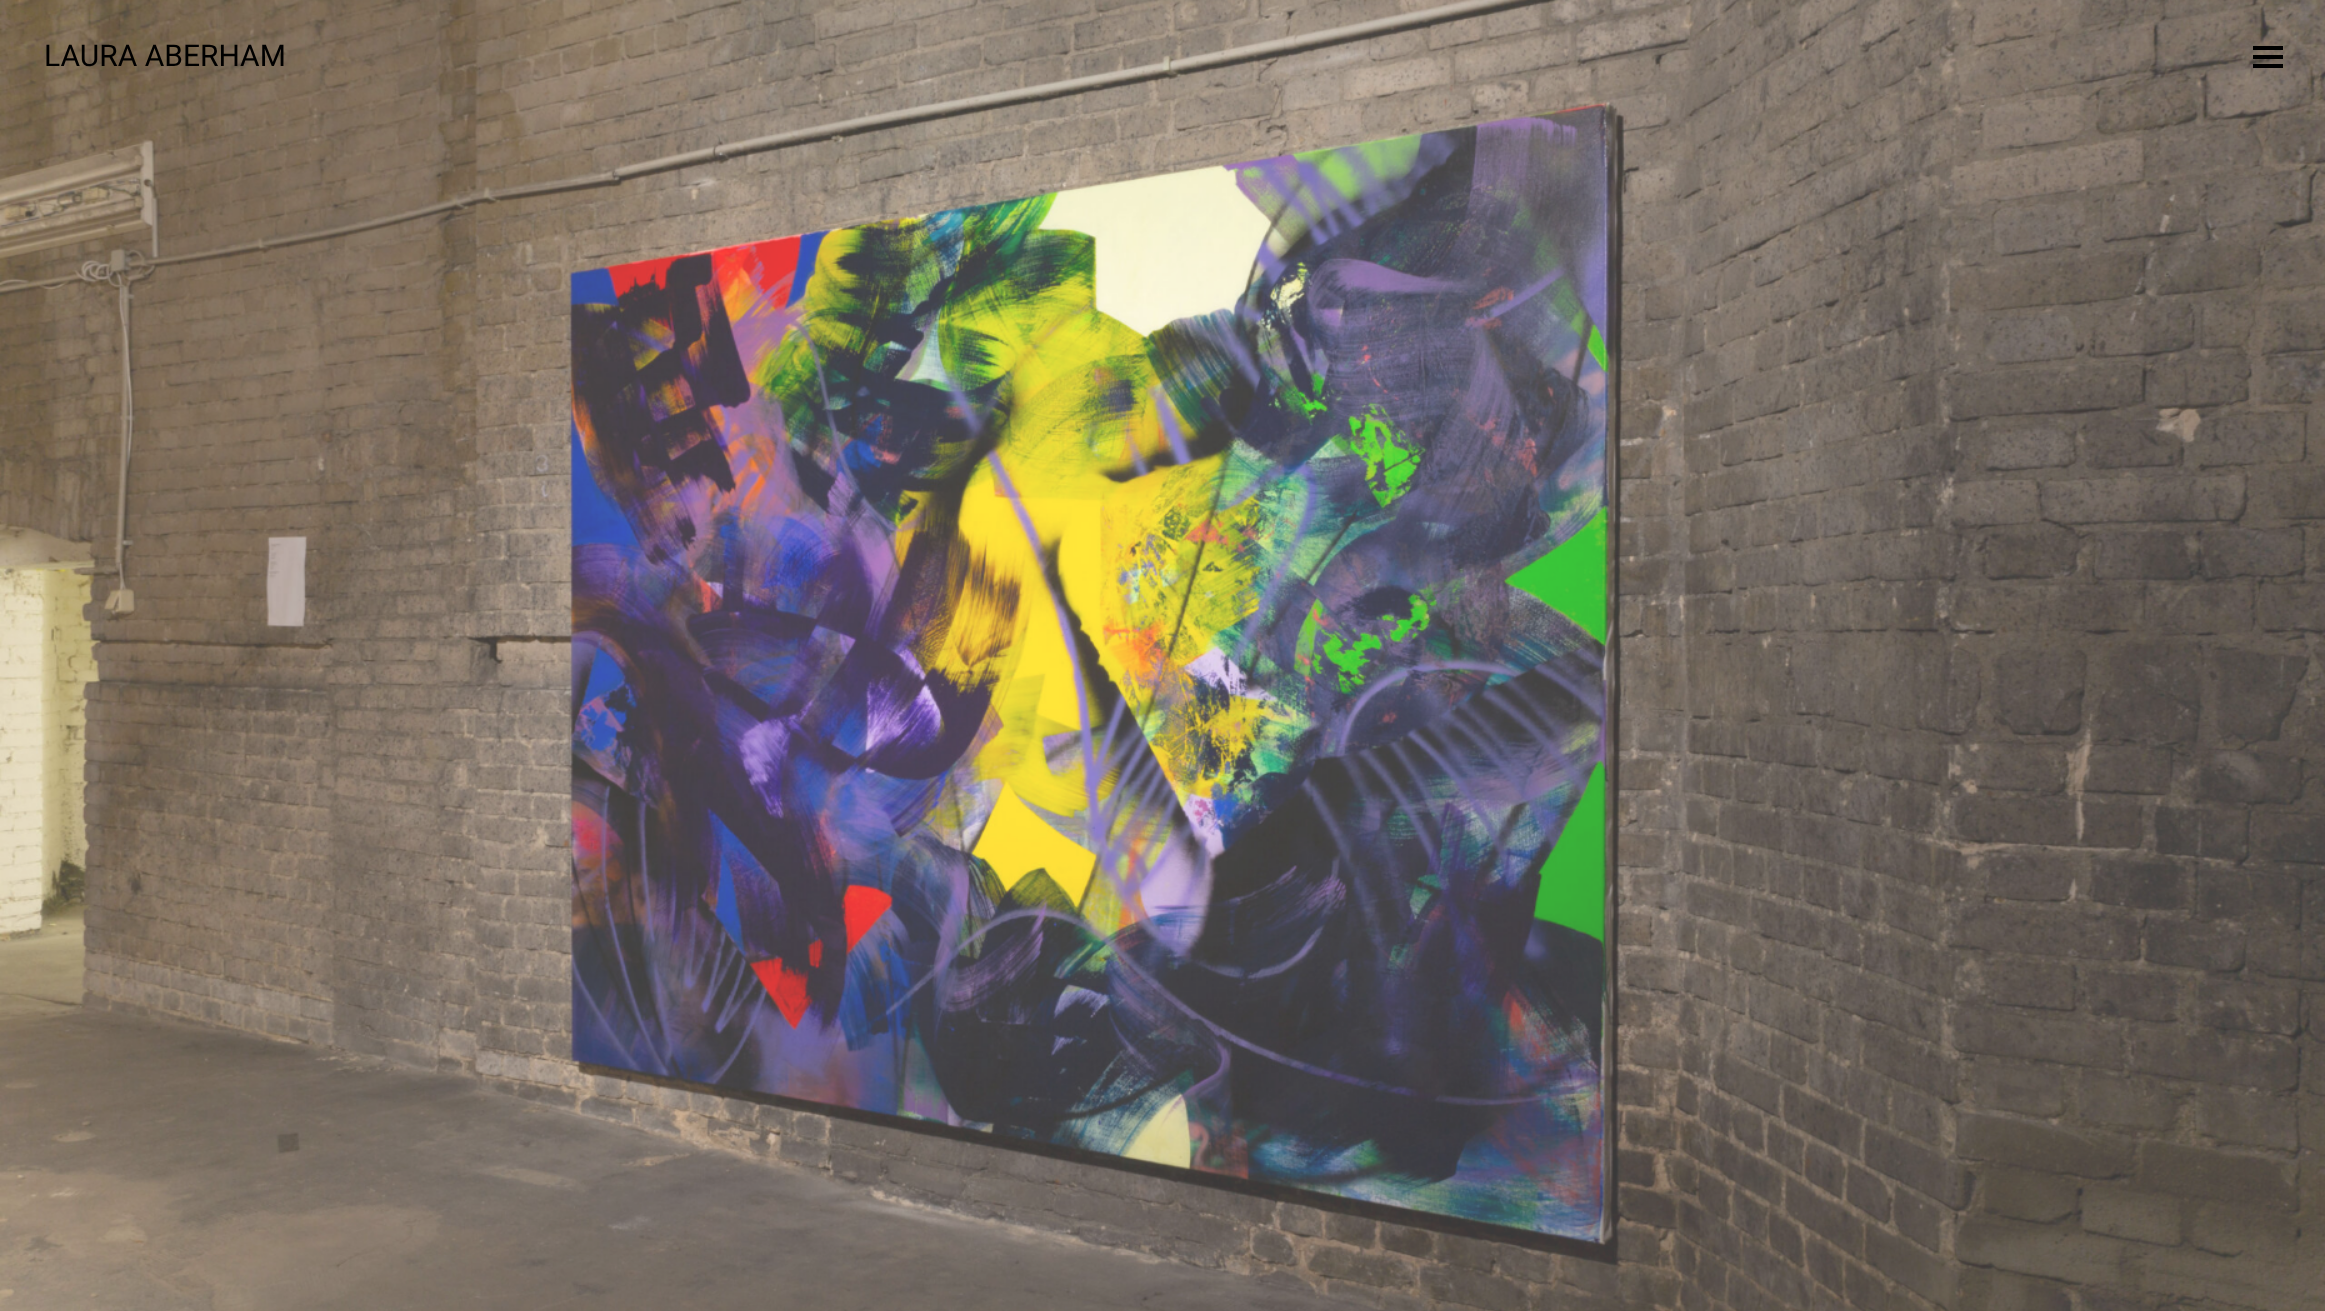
<?xml version="1.0" encoding="UTF-8"?>
<svg xmlns="http://www.w3.org/2000/svg" xmlns:xlink="http://www.w3.org/1999/xlink" width="2325" height="1311">
  <rect width="100%" height="100%" fill="#ffffff" />
  <image x="0" y="0" width="2325" height="1311" xlink:href="image1.png" />
  <rect x="2253" y="46" width="30" height="4" fill="#000000" />
  <rect x="2253" y="55" width="30" height="4" fill="#000000" />
  <rect x="2253" y="64" width="30" height="4" fill="#000000" />
  <text x="44" y="66" style="font-family: Roboto; font-size: 30px; fill: #000000">LAURA ABERHAM</text>
</svg>
